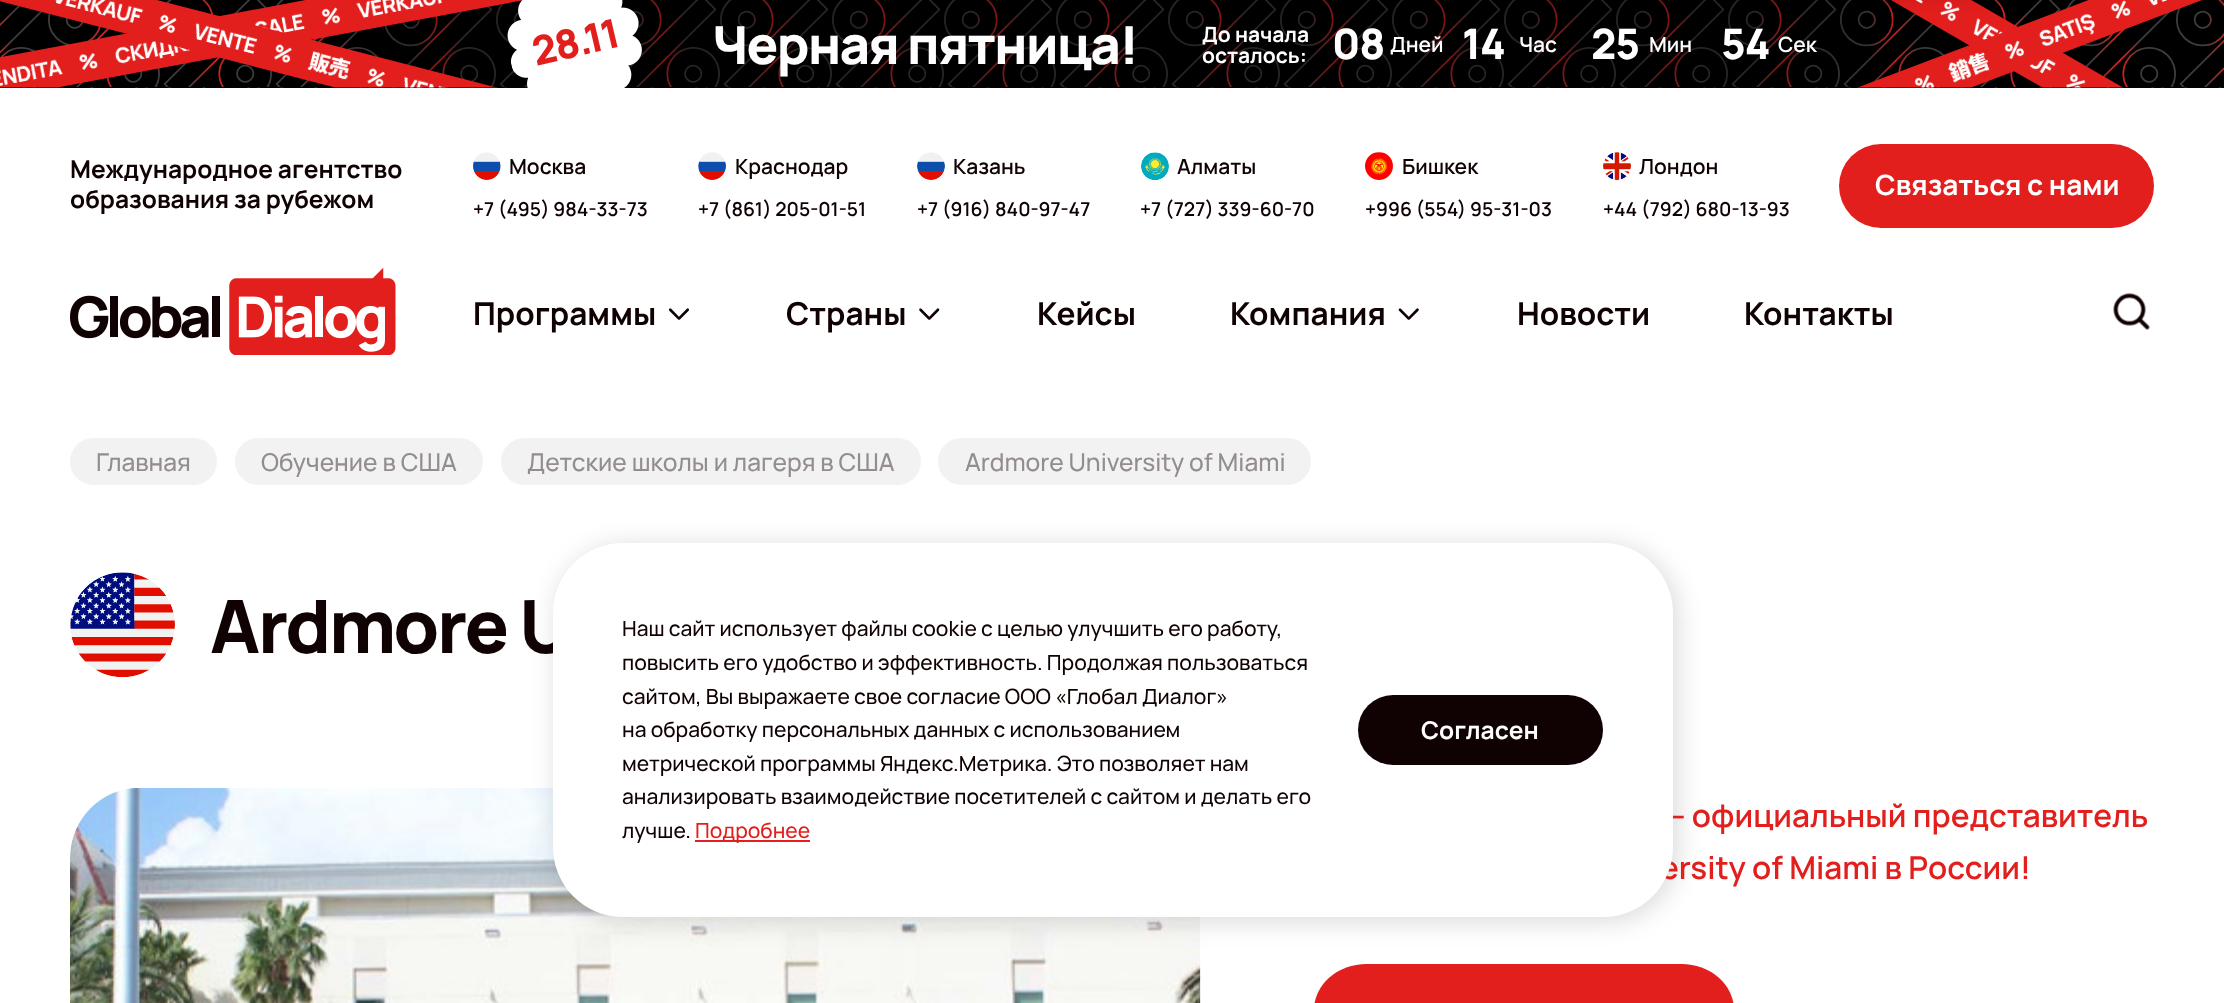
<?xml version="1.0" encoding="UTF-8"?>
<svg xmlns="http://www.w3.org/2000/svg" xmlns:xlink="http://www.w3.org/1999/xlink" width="2224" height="1003">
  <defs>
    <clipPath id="clip1"><rect x="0" y="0" width="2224" height="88" /></clipPath>
  </defs>
  <rect width="100%" height="100%" fill="#ffffff" />
  <rect width="2224" height="88" fill="#000000" />
  <image x="0" y="0" width="2224" height="88" xlink:href="image1.png" />
  <g clip-path="url(#clip1)">
    <rect x="382" y="7" width="1464" height="75" fill="#000000" filter="blur(70px)" />
  </g>
  <image x="0" y="0" width="523" height="88" xlink:href="image2.png" />
  <image x="0" y="0" width="498" height="88" xlink:href="image3.png" />
  <image x="507" y="0" width="135" height="88" xlink:href="image4.png" />
  <image x="1891" y="0" width="233" height="88" xlink:href="image6.png" />
  <rect x="1183" y="-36" width="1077" height="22" fill="#000000" fill-opacity="0.45" filter="blur(12px)" />
  <image x="1856" y="0" width="346" height="88" xlink:href="image5.png" />
  <image x="473" y="152" width="28" height="28" xlink:href="image7.png" />
  <image x="698" y="152" width="28" height="28" xlink:href="image8.png" />
  <image x="917" y="152" width="28" height="28" xlink:href="image9.png" />
  <image x="1141" y="152" width="28" height="28" xlink:href="image10.png" />
  <image x="1365" y="152" width="28" height="28" xlink:href="image11.png" />
  <image x="1603" y="152" width="28" height="28" xlink:href="image12.png" />
  <rect x="1839" y="144" width="315" height="84" rx="42" fill="#e21f1d" />
  <image x="70" y="268" width="326" height="87" xlink:href="image13.png" />
  <image x="668" y="308" width="22" height="12" xlink:href="image14.png" />
  <image x="919" y="308" width="21" height="12" xlink:href="image15.png" />
  <image x="1398" y="308" width="21" height="12" xlink:href="image16.png" />
  <image x="2113" y="293" width="37" height="37" xlink:href="image17.png" />
  <rect x="70" y="438" width="147" height="47" rx="23.5" fill="#f3f2f2" />
  <rect x="235" y="438" width="248" height="47" rx="23.5" fill="#f3f2f2" />
  <rect x="501" y="438" width="420" height="47" rx="23.5" fill="#f3f2f2" />
  <rect x="938" y="438" width="373" height="47" rx="23.5" fill="#f3f2f2" />
  <image x="70" y="572" width="105" height="105" xlink:href="image18.png" />
  <image x="70" y="788" width="1131" height="215" xlink:href="image19.png" />
  <rect x="1314" y="964" width="420" height="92" rx="52.5" fill="#e21f1d" />
  <rect x="557" y="546" width="1120" height="375" rx="70" fill="#000000" fill-opacity="0.15" filter="blur(13px)" />
  <text x="536" y="66" transform="rotate(-13.2 536 66)" style="font-family: Manrope; font-size: 40px; font-weight: 800; letter-spacing: -1.25px; fill: #e21f1d">28.11</text>
  <text x="712" y="64" style="font-family: Manrope; font-size: 52.5px; font-weight: 800; letter-spacing: -1.6px; fill: #ffffff">Черная пятница!</text>
  <text x="1202" y="42" style="font-family: Manrope; font-size: 21px; font-weight: bold; fill: #ffffff">До начала</text>
  <text x="1202" y="63" style="font-family: Manrope; font-size: 21px; font-weight: bold; fill: #ffffff">осталось:</text>
  <text x="1332" y="59" style="font-family: Manrope; font-size: 42px; font-weight: 800; letter-spacing: -1px; fill: #ffffff">08</text>
  <text x="1390" y="52" style="font-family: Manrope; font-size: 21px; font-weight: 600; fill: #ffffff">Дней</text>
  <text x="1462" y="59" style="font-family: Manrope; font-size: 42px; font-weight: 800; letter-spacing: -1px; fill: #ffffff">14</text>
  <text x="1519" y="52" style="font-family: Manrope; font-size: 21px; font-weight: 600; fill: #ffffff">Час</text>
  <text x="1591" y="59" style="font-family: Manrope; font-size: 42px; font-weight: 800; letter-spacing: -1px; fill: #ffffff">25</text>
  <text x="1649" y="52" style="font-family: Manrope; font-size: 21px; font-weight: 600; fill: #ffffff">Мин</text>
  <text x="1721" y="59" style="font-family: Manrope; font-size: 42px; font-weight: 800; letter-spacing: -1px; fill: #ffffff">54</text>
  <text x="1778" y="52" style="font-family: Manrope; font-size: 21px; font-weight: 600; fill: #ffffff">Сек</text>
  <text x="70" y="178" style="font-family: Manrope; font-size: 24.5px; font-weight: bold; fill: #100202">Международное агентство</text>
  <text x="70" y="208" style="font-family: Manrope; font-size: 24.5px; font-weight: bold; fill: #100202">образования за рубежом</text>
  <text x="509" y="174" style="font-family: Manrope; font-size: 21px; font-weight: 600; fill: #100202">Москва</text>
  <text x="473" y="216" style="font-family: Manrope; font-size: 19.25px; font-weight: 600; fill: #100202">+7 (495) 984-33-73</text>
  <text x="735" y="174" style="font-family: Manrope; font-size: 21px; font-weight: 600; fill: #100202">Краснодар</text>
  <text x="698" y="216" style="font-family: Manrope; font-size: 19.25px; font-weight: 600; fill: #100202">+7 (861) 205-01-51</text>
  <text x="953" y="174" style="font-family: Manrope; font-size: 21px; font-weight: 600; fill: #100202">Казань</text>
  <text x="917" y="216" style="font-family: Manrope; font-size: 19.25px; font-weight: 600; fill: #100202">+7 (916) 840-97-47</text>
  <text x="1177" y="174" style="font-family: Manrope; font-size: 21px; font-weight: 600; fill: #100202">Алматы</text>
  <text x="1140" y="216" style="font-family: Manrope; font-size: 19.25px; font-weight: 600; fill: #100202">+7 (727) 339-60-70</text>
  <text x="1402" y="174" style="font-family: Manrope; font-size: 21px; font-weight: 600; fill: #100202">Бишкек</text>
  <text x="1365" y="216" style="font-family: Manrope; font-size: 19.25px; font-weight: 600; fill: #100202">+996 (554) 95-31-03</text>
  <text x="1639" y="174" style="font-family: Manrope; font-size: 21px; font-weight: 600; fill: #100202">Лондон</text>
  <text x="1603" y="216" style="font-family: Manrope; font-size: 19.25px; font-weight: 600; fill: #100202">+44 (792) 680-13-93</text>
  <text x="1875" y="195" style="font-family: Manrope; font-size: 28px; font-weight: bold; fill: #ffffff">Связаться с нами</text>
  <text x="473" y="325" style="font-family: Manrope; font-size: 31.5px; font-weight: bold; fill: #100202">Программы</text>
  <text x="786" y="325" style="font-family: Manrope; font-size: 31.5px; font-weight: bold; fill: #100202">Страны</text>
  <text x="1037" y="325" style="font-family: Manrope; font-size: 31.5px; font-weight: bold; fill: #100202">Кейсы</text>
  <text x="1230" y="325" style="font-family: Manrope; font-size: 31.5px; font-weight: bold; fill: #100202">Компания</text>
  <text x="1517" y="325" style="font-family: Manrope; font-size: 31.5px; font-weight: bold; fill: #100202">Новости</text>
  <text x="1744" y="325" style="font-family: Manrope; font-size: 31.5px; font-weight: bold; fill: #100202">Контакты</text>
  <text x="96" y="471" style="font-family: Manrope; font-size: 24.5px; font-weight: 500; fill: #938d8d">Главная</text>
  <text x="261" y="471" style="font-family: Manrope; font-size: 24.5px; font-weight: 500; fill: #938d8d">Обучение в США</text>
  <text x="527" y="471" style="font-family: Manrope; font-size: 24.5px; font-weight: 500; fill: #938d8d">Детские школы и лагеря в США</text>
  <text x="965" y="471" style="font-family: Manrope; font-size: 24.5px; font-weight: 500; fill: #938d8d">Ardmore University of Miami</text>
  <text x="210" y="653" style="font-family: Manrope; font-size: 73.5px; font-weight: 800; letter-spacing: -2.25px; fill: #100202">Ardmore U</text>
  <text x="1661" y="827" style="font-family: Manrope; font-size: 31.5px; font-weight: 600; fill: #e21f1d">— официальный представитель</text>
  <text x="1660" y="879" style="font-family: Manrope; font-size: 31.5px; font-weight: 600; fill: #e21f1d">ersity of Miami в России!</text>
  <rect x="553" y="543" width="1120" height="374" rx="70" fill="#ffffff" />
  <text x="622" y="636" style="font-family: Manrope; font-size: 21px; font-weight: 500; fill: #100202">Наш сайт использует файлы cookie с целью улучшить его работу,</text>
  <text x="622" y="670" style="font-family: Manrope; font-size: 21px; font-weight: 500; fill: #100202">повысить его удобство и эффективность. Продолжая пользоваться</text>
  <text x="622" y="704" style="font-family: Manrope; font-size: 21px; font-weight: 500; fill: #100202">сайтом, Вы выражаете свое согласие ООО «Глобал Диалог»</text>
  <text x="622" y="737" style="font-family: Manrope; font-size: 21px; font-weight: 500; fill: #100202">на обработку персональных данных с использованием</text>
  <text x="622" y="771" style="font-family: Manrope; font-size: 21px; font-weight: 500; fill: #100202">метрической программы Яндекс.Метрика. Это позволяет нам</text>
  <text x="622" y="804" style="font-family: Manrope; font-size: 21px; font-weight: 500; fill: #100202">анализировать взаимодействие посетителей с сайтом и делать его</text>
  <text x="622" y="838" style="font-family: Manrope; font-size: 21px; font-weight: 500; fill: #100202">лучше.</text>
  <rect x="695" y="840" width="115" height="2" fill="#e21f1d" />
  <text x="695" y="838" style="font-family: Manrope; font-size: 21px; font-weight: 500; fill: #e21f1d">Подробнее</text>
  <rect x="1358" y="695" width="245" height="70" rx="35" fill="#100202" />
  <text x="1421" y="739" style="font-family: Manrope; font-size: 24.5px; font-weight: bold; fill: #ffffff">Согласен</text>
</svg>
